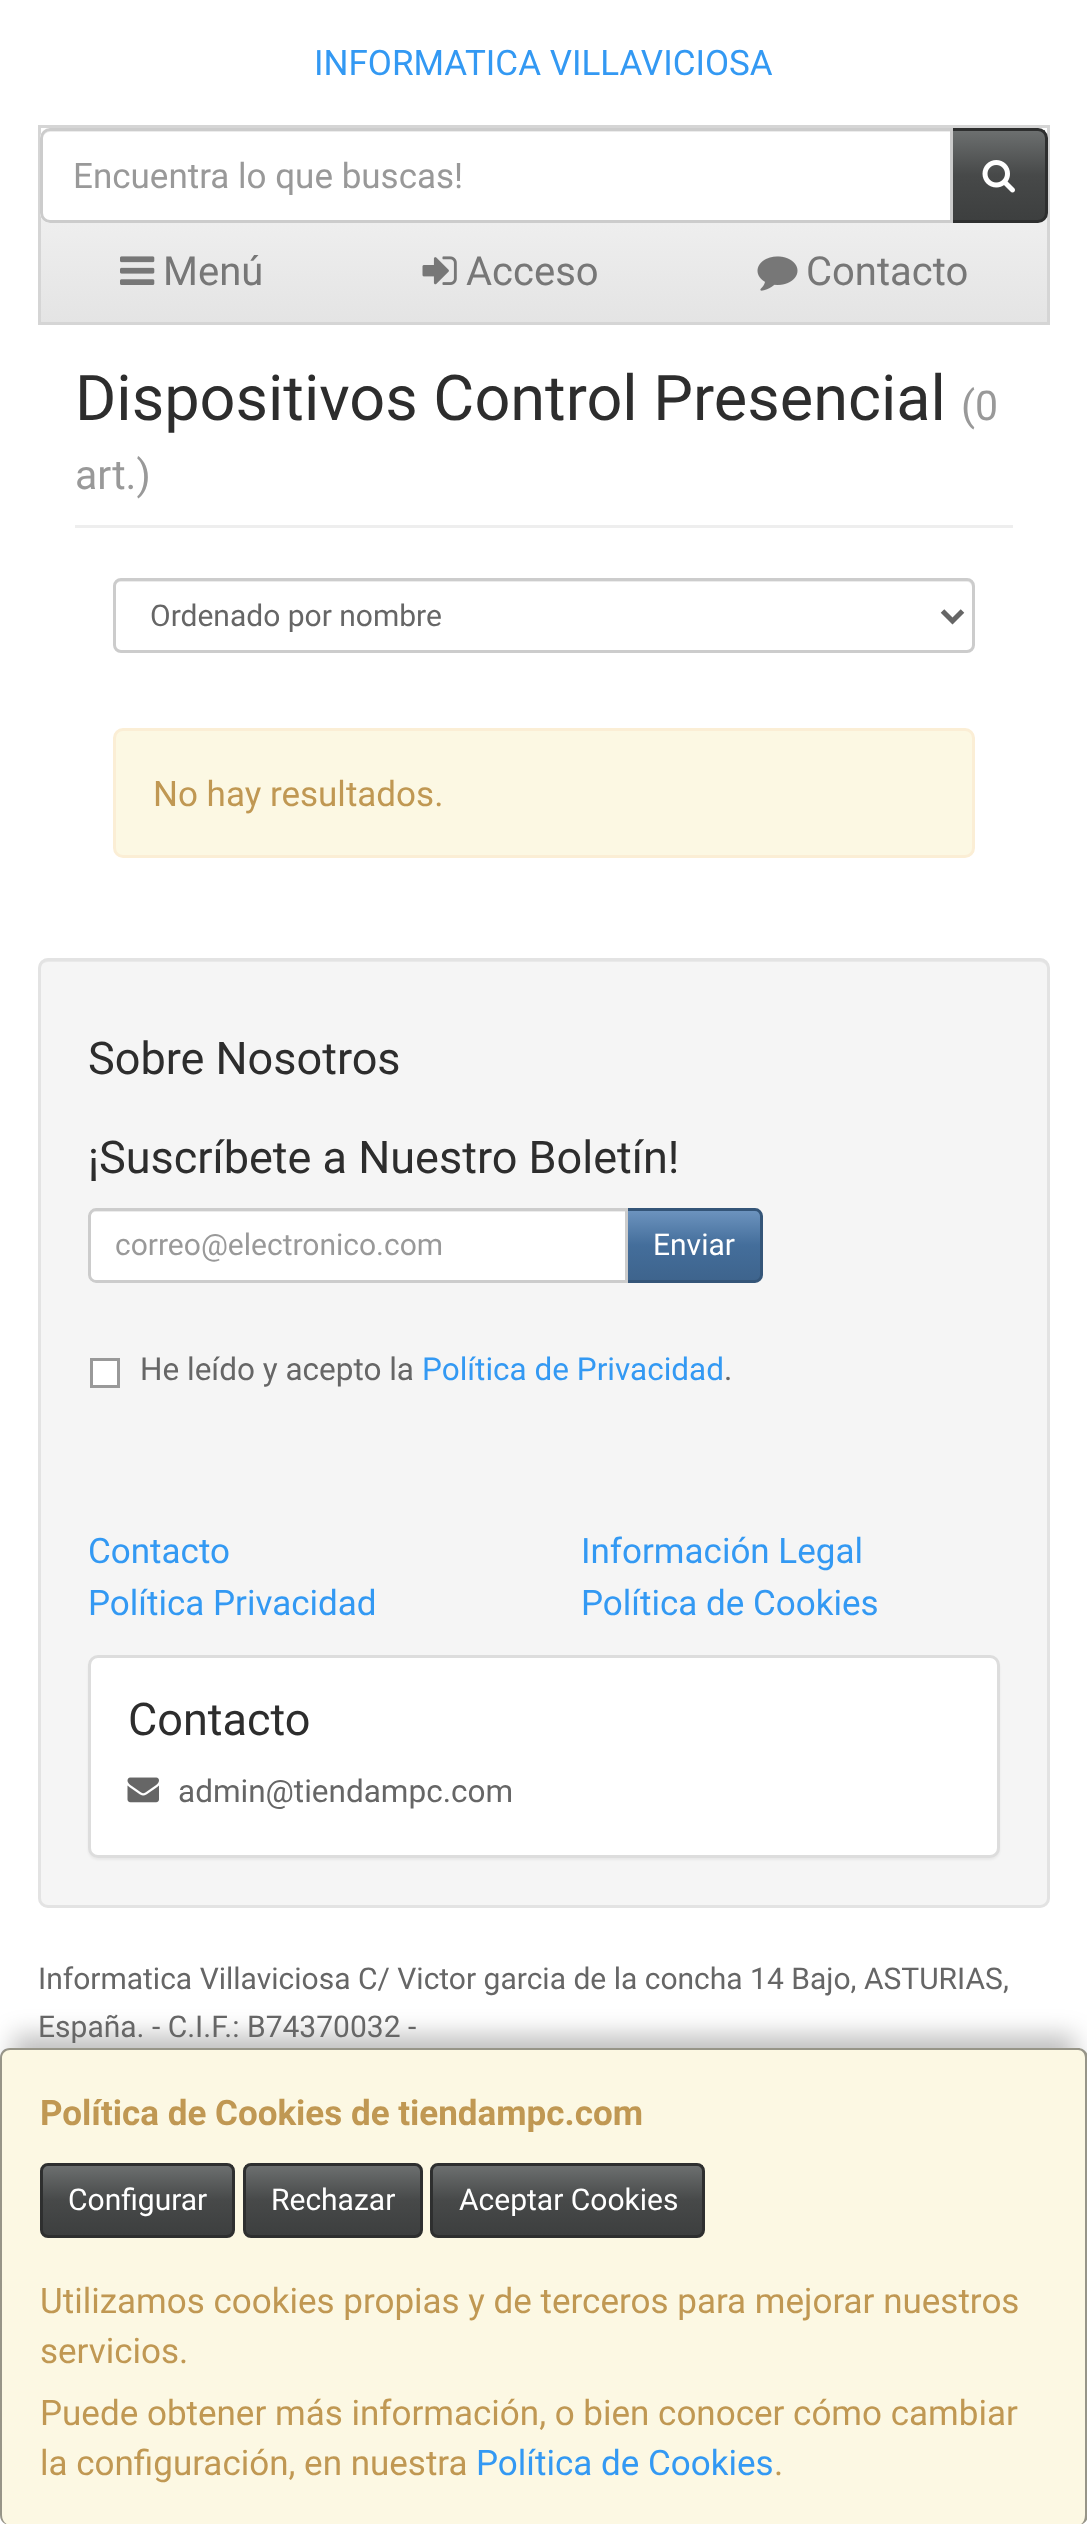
<?xml version="1.0" encoding="UTF-8"?>
<svg xmlns="http://www.w3.org/2000/svg" xmlns:xlink="http://www.w3.org/1999/xlink" width="1087" height="2524">
  <defs>
    <linearGradient id="g1" gradientUnits="userSpaceOnUse" x1="544" y1="127" x2="544" y2="323"><stop offset="0" stop-color="#ffffff" /><stop offset="0.5" stop-color="#eeeeee" /><stop offset="1" stop-color="#e4e4e4" /></linearGradient>
    <linearGradient id="g2" gradientUnits="userSpaceOnUse" x1="999" y1="130" x2="999" y2="220"><stop offset="0" stop-color="#6d7070" /><stop offset="0.5" stop-color="#474949" /><stop offset="1" stop-color="#3d3f3f" /></linearGradient>
    <linearGradient id="g3" gradientUnits="userSpaceOnUse" x1="694" y1="1210" x2="694" y2="1280"><stop offset="0" stop-color="#6d94bf" /><stop offset="0.5" stop-color="#446e9b" /><stop offset="1" stop-color="#3e648d" /></linearGradient>
    <linearGradient id="g4" gradientUnits="userSpaceOnUse" x1="138" y1="2165" x2="138" y2="2235"><stop offset="0" stop-color="#6d7070" /><stop offset="0.5" stop-color="#474949" /><stop offset="1" stop-color="#3d3f3f" /></linearGradient>
    <linearGradient id="g5" gradientUnits="userSpaceOnUse" x1="333" y1="2165" x2="333" y2="2235"><stop offset="0" stop-color="#6d7070" /><stop offset="0.5" stop-color="#474949" /><stop offset="1" stop-color="#3d3f3f" /></linearGradient>
    <linearGradient id="g6" gradientUnits="userSpaceOnUse" x1="568" y1="2165" x2="568" y2="2235"><stop offset="0" stop-color="#6d7070" /><stop offset="0.5" stop-color="#474949" /><stop offset="1" stop-color="#3d3f3f" /></linearGradient>
    <clipPath id="clip1"><rect x="73" y="155" width="847" height="40" /></clipPath>
  </defs>
  <rect width="100%" height="100%" fill="#ffffff" />
  <rect x="41" y="141" width="1006" height="181" fill="url(#g1)" />
  <rect x="39.5" y="126.5" width="1009" height="197" fill="none" stroke="#d5d5d5" stroke-width="3" />
  <rect x="953" y="130" width="92" height="90" fill="url(#g2)" />
  <path d="M 951.5 129.5 h 86.5 c 4.5 0 8.5 4 8.5 8.5 v 75 c 0 4.5 -4 8.5 -8.5 8.5 h -86.5 z" fill="none" stroke="#2e2f2f" stroke-width="3" />
  <path d="M 50 128 h 903 v 95 h -903 c -5.5 0 -10 -4.5 -10 -10 v -75 c 0 -5.5 4.5 -10 10 -10 z" fill="#ffffff" />
  <path d="M 50 132 h 900 v -2 h -899 c -4 0 -7 3 -8 6 c 2 -2 4 -4 7 -4 z" fill="#ececec" />
  <path d="M 50 129.5 h 901.5 v 92 h -901.5 c -4.5 0 -8.5 -4 -8.5 -8.5 v -75 c 0 -4.5 4 -8.5 8.5 -8.5 z" fill="none" stroke="#cccccc" stroke-width="3" />
  <image x="982" y="160" width="33" height="33" xlink:href="image1.png" />
  <image x="120" y="256" width="35" height="29" xlink:href="image2.png" />
  <image x="422" y="256" width="35" height="29" xlink:href="image3.png" />
  <image x="757" y="256" width="41" height="35" xlink:href="image4.png" />
  <rect x="75" y="525" width="938" height="3" fill="#eeeeee" />
  <path d="M 120 582 h 848 c 2 0 4 3 4 6 v 60 c 1 -1 1 -2 1 -3 v -60 c 0 -3 -2 -5 -5 -5 h -848 c -3 0 -5 2 -5 5 v 3 c 0 -3 2 -6 5 -6 z" fill="#ececec" />
  <rect x="114.5" y="579.5" width="859" height="72" rx="6.5" fill="none" stroke="#cccccc" stroke-width="3" />
  <path d="M 942.5 611 l 10 10 l 10 -10" fill="none" stroke="#666666" stroke-width="5" />
  <rect x="114.5" y="729.5" width="859" height="127" rx="8.5" fill="#fcf8e3" stroke="#fbeed5" stroke-width="3" />
  <rect x="38" y="958" width="1012" height="950" rx="10" fill="#f5f5f5" />
  <path d="M 48 962 h 992 c 4 0 8 4 8 8 c 0 -5 -2 -10 -8 -10 h -992 c -6 0 -8 5 -8 10 c 0 -4 3 -8 8 -8 z" fill="#e9e9e9" />
  <rect x="39.5" y="959.5" width="1009" height="947" rx="8.5" fill="none" stroke="#e3e3e3" stroke-width="3" />
  <rect x="628" y="1211" width="132" height="69" fill="url(#g3)" />
  <path d="M 626.5 1209.5 h 128.5 c 3.5 0 6.5 3 6.5 6.5 v 59 c 0 3.5 -3 6.5 -6.5 6.5 h -128.5 z" fill="none" stroke="#345578" stroke-width="3" />
  <path d="M 96 1208 h 532 v 75 h -532 c -4.5 0 -8 -3.5 -8 -8 v -59 c 0 -4.5 3.5 -8 8 -8 z" fill="#ffffff" />
  <path d="M 95 1212 h 530 v -2 h -530 c -5 0 -5 4 -5 8 c 0 -3 2 -6 5 -6 z" fill="#ececec" />
  <path d="M 96 1209.5 h 530.5 v 72 h -530.5 c -3.5 0 -6.5 -3 -6.5 -6.5 v -59 c 0 -3.5 3 -6.5 6.5 -6.5 z" fill="none" stroke="#cccccc" stroke-width="3" />
  <rect x="91.5" y="1359.5" width="27" height="27" fill="#ffffff" stroke="#999999" stroke-width="3" />
  <rect x="88" y="1658" width="912" height="202" rx="10" fill="#000000" fill-opacity="0.05" filter="blur(1px)" />
  <rect x="89.5" y="1656.5" width="909" height="200" rx="8.5" fill="#ffffff" stroke="#dddddd" stroke-width="3" />
  <image x="127" y="1777" width="32" height="26" xlink:href="image5.png" />
  <rect x="13" y="2035" width="1062" height="453" fill="#000000" fill-opacity="0.25" filter="blur(12.5px)" />
  <rect y="2048" width="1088" height="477" rx="10" fill="#fcf8e3" />
  <path d="M 10 2048 h 1068 c 5 0 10 4 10 10 v 457 c 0 6 -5 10 -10 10 h -1068 c -6 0 -10 -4 -10 -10 v -457 c 0 -6 4 -10 10 -10 z m 0 2 h 1068 c 4 0 7 3 7 8 v 457 c 0 6 -3 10 -7 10 h -1068 c -4 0 -8 -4 -8 -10 v -457 c 0 -5 4 -8 8 -8 z" fill="#000000" fill-opacity="0.4" fill-rule="evenodd" />
  <rect x="43" y="2165" width="190" height="70" fill="url(#g4)" />
  <rect x="41.5" y="2164.5" width="192" height="72" rx="6.5" fill="none" stroke="#2e2f2f" stroke-width="3" />
  <rect x="245" y="2165" width="175" height="70" fill="url(#g5)" />
  <rect x="244.5" y="2164.5" width="177" height="72" rx="6.5" fill="none" stroke="#2e2f2f" stroke-width="3" />
  <rect x="433" y="2165" width="270" height="70" fill="url(#g6)" />
  <rect x="431.5" y="2164.5" width="272" height="72" rx="6.5" fill="none" stroke="#2e2f2f" stroke-width="3" />
  <text x="314" y="75" style="font-family: Roboto; font-size: 35px; fill: #3399f3">INFORMATICA VILLAVICIOSA</text>
  <g clip-path="url(#clip1)">
    <text x="73" y="188" style="font-family: Roboto; font-size: 35px; fill: #999999">Encuentra lo que buscas!</text>
  </g>
  <text x="163" y="285" style="font-family: Roboto; font-size: 40px; fill: #777777">Menú</text>
  <text x="466" y="285" style="font-family: Roboto; font-size: 40px; fill: #777777">Acceso</text>
  <text x="806" y="285" style="font-family: Roboto; font-size: 40px; fill: #777777">Contacto</text>
  <text x="75" y="420" style="font-family: Roboto; font-size: 63px; fill: #2d2d2d">Dispositivos Control Presencial</text>
  <text x="961" y="420" style="font-family: Roboto; font-size: 41px; fill: #999999">(0</text>
  <text x="75" y="489" style="font-family: Roboto; font-size: 41px; fill: #999999">art.)</text>
  <text x="150" y="626" style="font-family: Roboto; font-size: 30px; fill: #666666">Ordenado por nombre</text>
  <text x="153" y="806" style="font-family: Roboto; font-size: 35px; fill: #c09853">No hay resultados.</text>
  <text x="88" y="1074" style="font-family: Roboto; font-size: 45px; fill: #2d2d2d">Sobre Nosotros</text>
  <text x="88" y="1173" style="font-family: Roboto; font-size: 45px; fill: #2d2d2d">¡Suscríbete a Nuestro Boletín!</text>
  <text x="115" y="1255" style="font-family: Roboto; font-size: 30px; fill: #999999">correo@electronico.com</text>
  <text x="653" y="1255" style="font-family: Roboto; font-size: 30px; fill: #ffffff">Enviar</text>
  <text x="140" y="1380" style="font-family: Roboto; font-size: 31.5px; fill: #666666">He leído y acepto la</text>
  <text x="422" y="1380" style="font-family: Roboto; font-size: 31.5px; fill: #3399f3">Política de Privacidad</text>
  <text x="724" y="1380" style="font-family: Roboto; font-size: 31.5px; fill: #666666">.</text>
  <text x="88" y="1563" style="font-family: Roboto; font-size: 35px; fill: #3399f3">Contacto</text>
  <text x="581" y="1563" style="font-family: Roboto; font-size: 35px; fill: #3399f3">Información Legal</text>
  <text x="88" y="1615" style="font-family: Roboto; font-size: 35px; fill: #3399f3">Política Privacidad</text>
  <text x="581" y="1615" style="font-family: Roboto; font-size: 35px; fill: #3399f3">Política de Cookies</text>
  <text x="128" y="1735" style="font-family: Roboto; font-size: 45px; fill: #2d2d2d">Contacto</text>
  <text x="178" y="1802" style="font-family: Roboto; font-size: 31.5px; fill: #666666">admin@tiendampc.com</text>
  <text x="38" y="1989" style="font-family: Roboto; font-size: 30px; fill: #666666">Informatica Villaviciosa C/ Victor garcia de la concha 14 Bajo, ASTURIAS,</text>
  <text x="38" y="2037" style="font-family: Roboto; font-size: 30px; fill: #666666">España. - C.I.F.: B74370032 -</text>
  <text x="40" y="2125" style="font-family: Roboto; font-size: 35px; font-weight: bold; fill: #c09853">Política de Cookies de tiendampc.com</text>
  <text x="68" y="2210" style="font-family: Roboto; font-size: 30px; fill: #ffffff">Configurar</text>
  <text x="271" y="2210" style="font-family: Roboto; font-size: 30px; fill: #ffffff">Rechazar</text>
  <text x="459" y="2210" style="font-family: Roboto; font-size: 30px; fill: #ffffff">Aceptar Cookies</text>
  <text x="40" y="2313" style="font-family: Roboto; font-size: 35px; fill: #c09853">Utilizamos cookies propias y de terceros para mejorar nuestros</text>
  <text x="40" y="2363" style="font-family: Roboto; font-size: 35px; fill: #c09853">servicios.</text>
  <text x="40" y="2425" style="font-family: Roboto; font-size: 35px; fill: #c09853">Puede obtener más información, o bien conocer cómo cambiar</text>
  <text x="40" y="2475" style="font-family: Roboto; font-size: 35px; fill: #c09853">la configuración, en nuestra</text>
  <text x="476" y="2475" style="font-family: Roboto; font-size: 35px; fill: #3399f3">Política de Cookies</text>
  <text x="774" y="2475" style="font-family: Roboto; font-size: 35px; fill: #c09853">.</text>
</svg>
